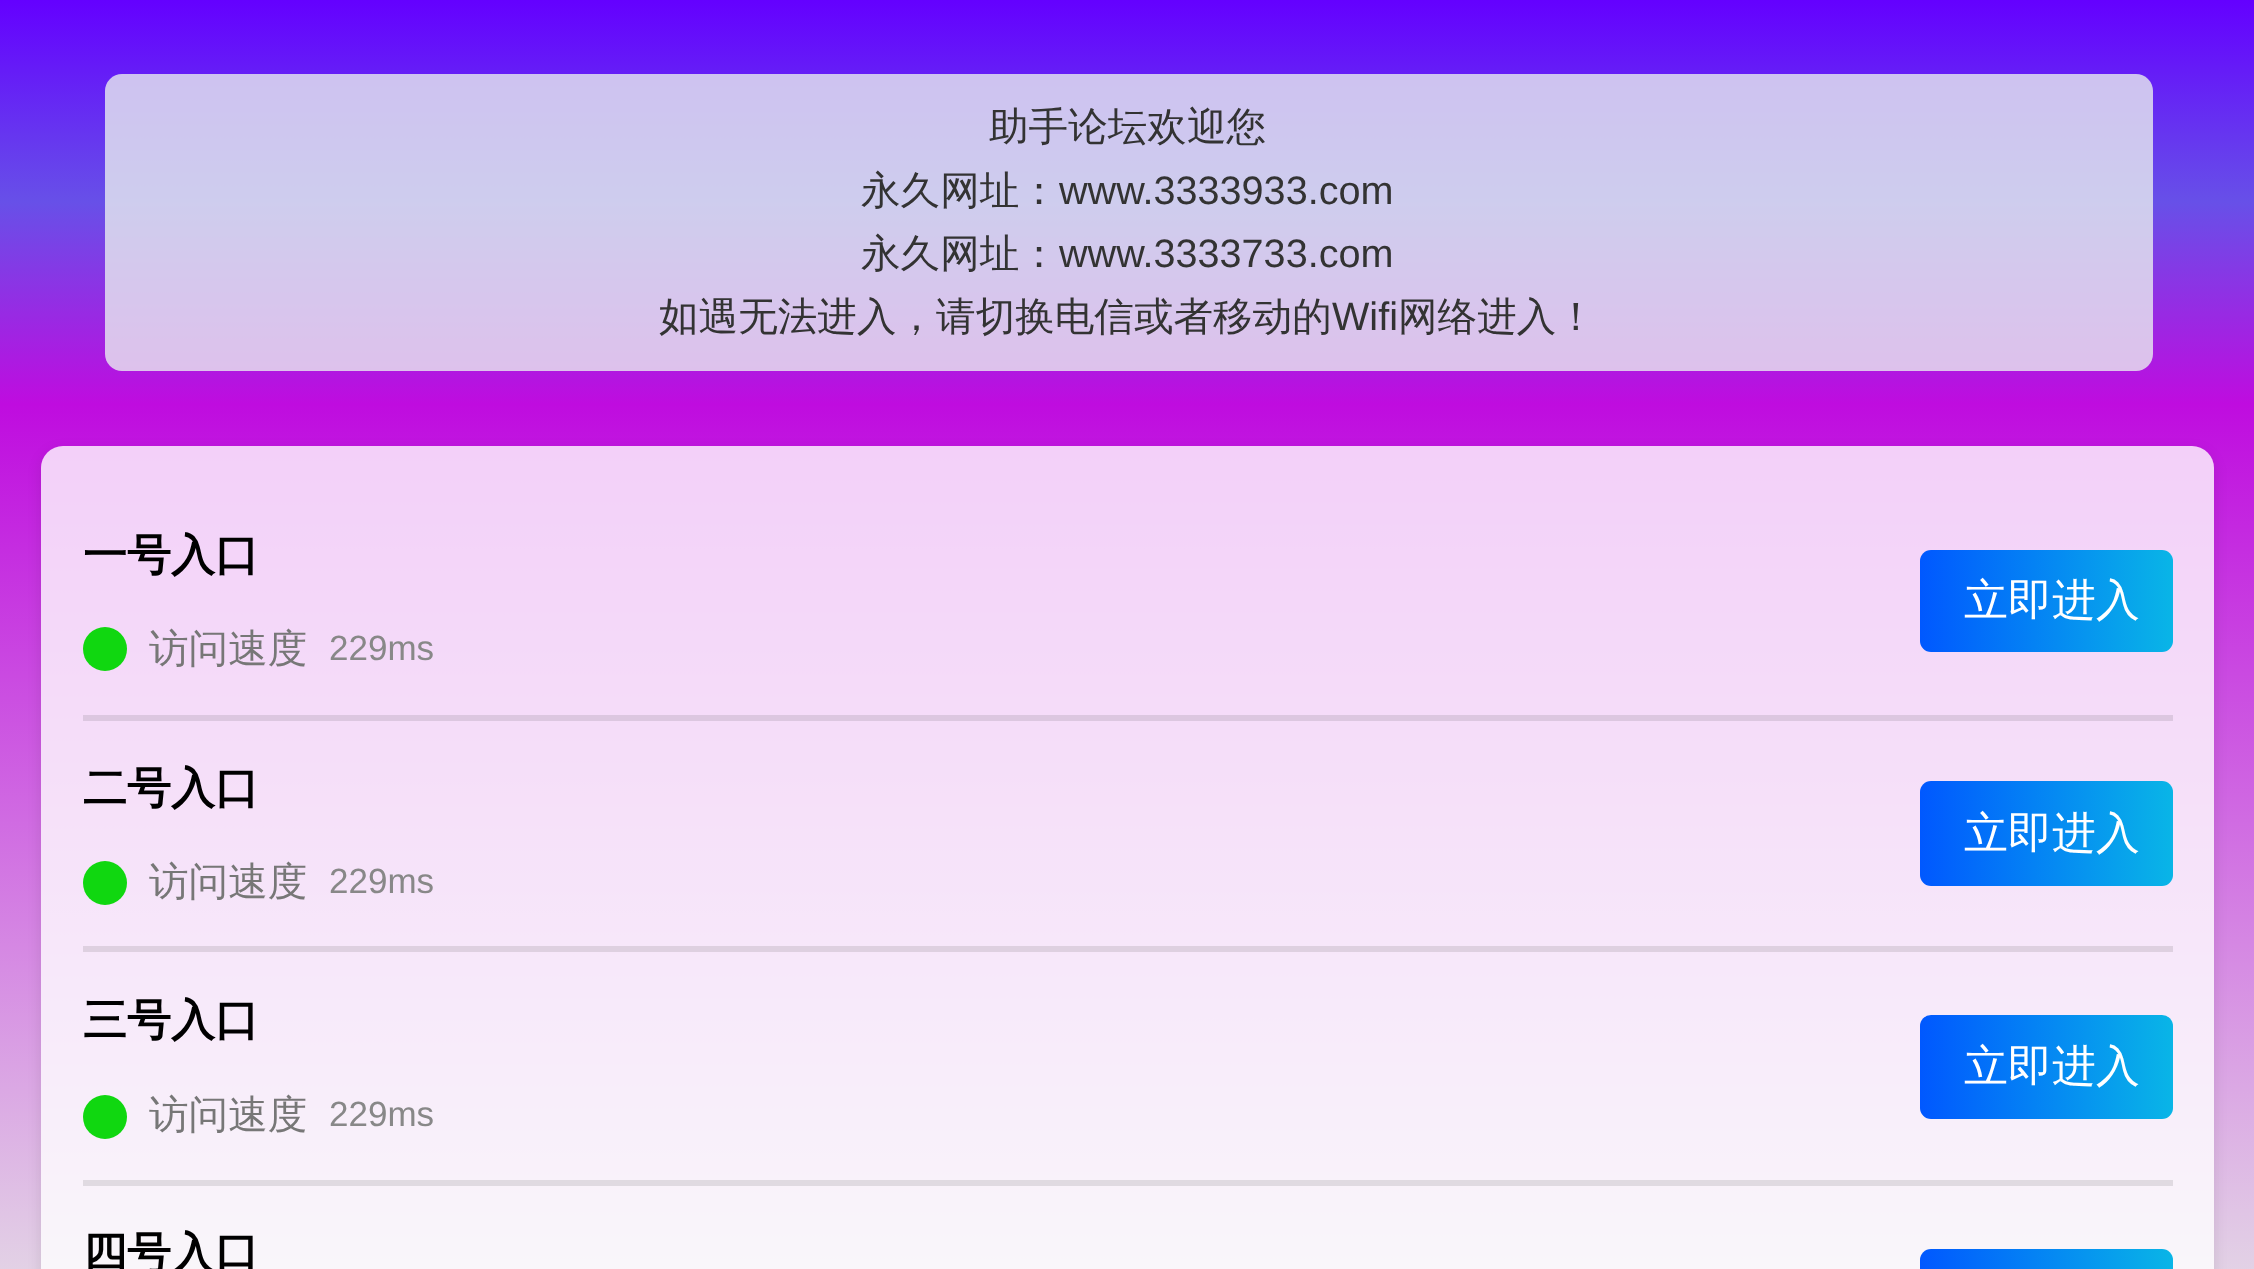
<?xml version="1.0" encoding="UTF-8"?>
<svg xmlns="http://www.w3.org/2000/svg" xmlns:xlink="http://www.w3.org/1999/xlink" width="2254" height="1269">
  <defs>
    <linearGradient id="g1" gradientUnits="userSpaceOnUse" x1="1128" y1="0" x2="1128" y2="404"><stop offset="0" stop-color="#6400ff" /><stop offset="0.5" stop-color="#6750e8" /><stop offset="1" stop-color="#bf0cdf" /></linearGradient>
    <linearGradient id="g2" gradientUnits="userSpaceOnUse" x1="1127" y1="404" x2="1128" y2="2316"><stop offset="0" stop-color="#bf0cdf" /><stop offset="0.5" stop-color="#e6e6e6" /><stop offset="1" stop-color="#ffffff" /></linearGradient>
    <clipPath id="clip1"><path d="M 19 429 h 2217 v 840 h -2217 z m 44 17 h 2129 c 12 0 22 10 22 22 v 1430 c 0 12 -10 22 -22 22 h -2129 c -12 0 -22 -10 -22 -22 v -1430 c 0 -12 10 -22 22 -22 z" clip-rule="evenodd" /></clipPath>
    <linearGradient id="g3" gradientUnits="userSpaceOnUse" x1="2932" y1="753" x2="1920" y2="754"><stop offset="0" stop-color="#0058ff" /><stop offset="0.33" stop-color="#0c99df" /><stop offset="0.67" stop-color="#0cd3df" /><stop offset="1" stop-color="#0058ff" /></linearGradient>
    <linearGradient id="g4" gradientUnits="userSpaceOnUse" x1="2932" y1="990" x2="1920" y2="990"><stop offset="0" stop-color="#0058ff" /><stop offset="0.33" stop-color="#0c99df" /><stop offset="0.67" stop-color="#0cd3df" /><stop offset="1" stop-color="#0058ff" /></linearGradient>
    <linearGradient id="g5" gradientUnits="userSpaceOnUse" x1="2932" y1="1224" x2="1920" y2="1224"><stop offset="0" stop-color="#0058ff" /><stop offset="0.33" stop-color="#0c99df" /><stop offset="0.67" stop-color="#0cd3df" /><stop offset="1" stop-color="#0058ff" /></linearGradient>
    <linearGradient id="g6" gradientUnits="userSpaceOnUse" x1="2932" y1="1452" x2="1920" y2="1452"><stop offset="0" stop-color="#0058ff" /><stop offset="0.33" stop-color="#0c99df" /><stop offset="0.67" stop-color="#0cd3df" /><stop offset="1" stop-color="#0058ff" /></linearGradient>
  </defs>
  <rect width="100%" height="100%" fill="#ffffff" />
  <rect width="2254" height="404" fill="url(#g1)" />
  <rect x="105" y="74" width="2048" height="297" rx="17" fill="#e9ecef" fill-opacity="0.8" />
  <rect y="404" width="2254" height="865" fill="url(#g2)" />
  <g clip-path="url(#clip1)">
    <rect x="41" y="451" width="2173" height="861" rx="22" fill="#000000" fill-opacity="0.1" filter="blur(7px)" />
  </g>
  <rect x="41" y="446" width="2173" height="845" rx="22" fill="#ffffff" fill-opacity="0.8" />
  <rect x="83" y="715" width="2090" height="6" fill="#dcc7e0" />
  <circle cx="105" cy="649" r="22" fill="#10d710" />
  <rect x="1920" y="550" width="253" height="102" rx="11" fill="url(#g3)" />
  <rect x="83" y="946" width="2090" height="6" fill="#ded0e0" />
  <circle cx="105" cy="883" r="22" fill="#10d710" />
  <rect x="1920" y="781" width="253" height="105" rx="11" fill="url(#g4)" />
  <rect x="83" y="1180" width="2090" height="6" fill="#e0dae1" />
  <circle cx="105" cy="1117" r="22" fill="#10d710" />
  <rect x="1920" y="1015" width="253" height="104" rx="11" fill="url(#g5)" />
  <rect x="1920" y="1249" width="253" height="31" rx="11" fill="url(#g6)" />
  <text x="989" y="140" style="font-family: WenQuanYi Zen Hei; font-size: 39.6px; font-weight: 500; fill: #333333">助手论坛欢迎您</text>
  <text x="861" y="204" style="font-family: WenQuanYi Zen Hei; font-size: 39.6px; font-weight: 500; fill: #333333">永久网址：</text>
  <text x="1059" y="204" style="font-family: Liberation Sans; font-size: 39.6px; fill: #333333">www.3333933.com</text>
  <text x="861" y="267" style="font-family: WenQuanYi Zen Hei; font-size: 39.6px; font-weight: 500; fill: #333333">永久网址：</text>
  <text x="1059" y="267" style="font-family: Liberation Sans; font-size: 39.6px; fill: #333333">www.3333733.com</text>
  <text x="659" y="330" style="font-family: WenQuanYi Zen Hei; font-size: 39.6px; font-weight: 500; fill: #333333">如遇无法进入，请切换电信或者移动的</text>
  <text x="1332" y="330" style="font-family: Liberation Sans; font-size: 39.6px; fill: #333333">Wifi</text>
  <text x="1398" y="330" style="font-family: WenQuanYi Zen Hei; font-size: 39.6px; font-weight: 500; fill: #333333">网络进入！</text>
  <text x="83" y="570" style="font-family: WenQuanYi Zen Hei; font-size: 44px; font-weight: bold; fill: #000000">一号入口</text>
  <text x="149" y="662" style="font-family: WenQuanYi Zen Hei; font-size: 39.6px; font-weight: 500; fill: #777777">访问速度</text>
  <text x="329" y="660" style="font-family: Liberation Sans; font-size: 35px; fill: #888888">229ms</text>
  <text x="1964" y="615" style="font-family: WenQuanYi Zen Hei; font-size: 44px; font-weight: 500; fill: #ffffff">立即进入</text>
  <text x="83" y="803" style="font-family: WenQuanYi Zen Hei; font-size: 44px; font-weight: bold; fill: #000000">二号入口</text>
  <text x="149" y="895" style="font-family: WenQuanYi Zen Hei; font-size: 39.6px; font-weight: 500; fill: #777777">访问速度</text>
  <text x="329" y="893" style="font-family: Liberation Sans; font-size: 35px; fill: #888888">229ms</text>
  <text x="1964" y="848" style="font-family: WenQuanYi Zen Hei; font-size: 44px; font-weight: 500; fill: #ffffff">立即进入</text>
  <text x="83" y="1035" style="font-family: WenQuanYi Zen Hei; font-size: 44px; font-weight: bold; fill: #000000">三号入口</text>
  <text x="149" y="1128" style="font-family: WenQuanYi Zen Hei; font-size: 39.6px; font-weight: 500; fill: #777777">访问速度</text>
  <text x="329" y="1126" style="font-family: Liberation Sans; font-size: 35px; fill: #888888">229ms</text>
  <text x="1964" y="1081" style="font-family: WenQuanYi Zen Hei; font-size: 44px; font-weight: 500; fill: #ffffff">立即进入</text>
  <text x="83" y="1268" style="font-family: WenQuanYi Zen Hei; font-size: 44px; font-weight: bold; fill: #000000">四号入口</text>
</svg>
